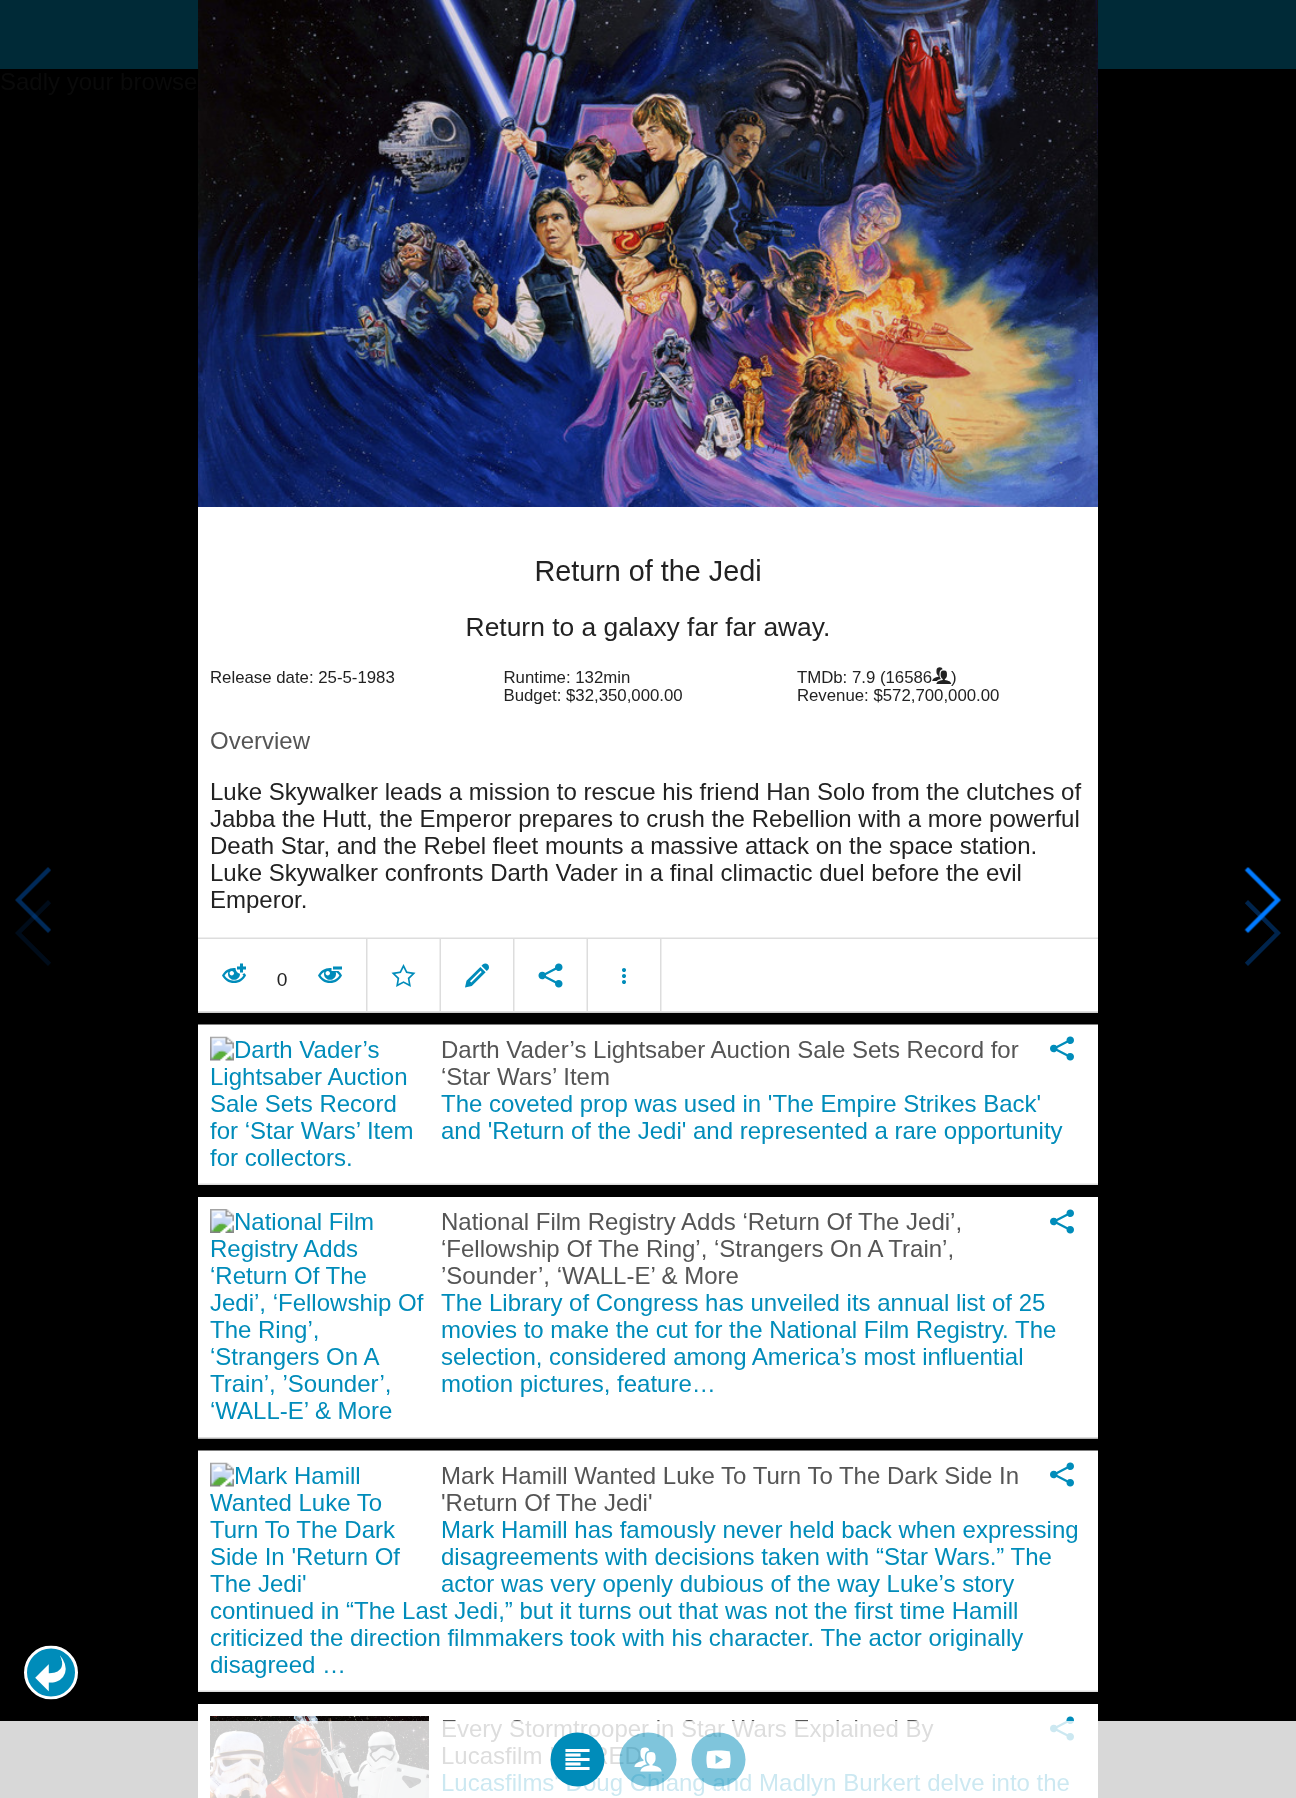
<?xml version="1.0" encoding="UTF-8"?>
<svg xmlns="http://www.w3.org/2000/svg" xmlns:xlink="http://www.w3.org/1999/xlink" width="1296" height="1798">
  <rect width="100%" height="100%" fill="#ffffff" />
  <image x="0" y="0" width="1296" height="1798" xlink:href="image1.png" />
</svg>
